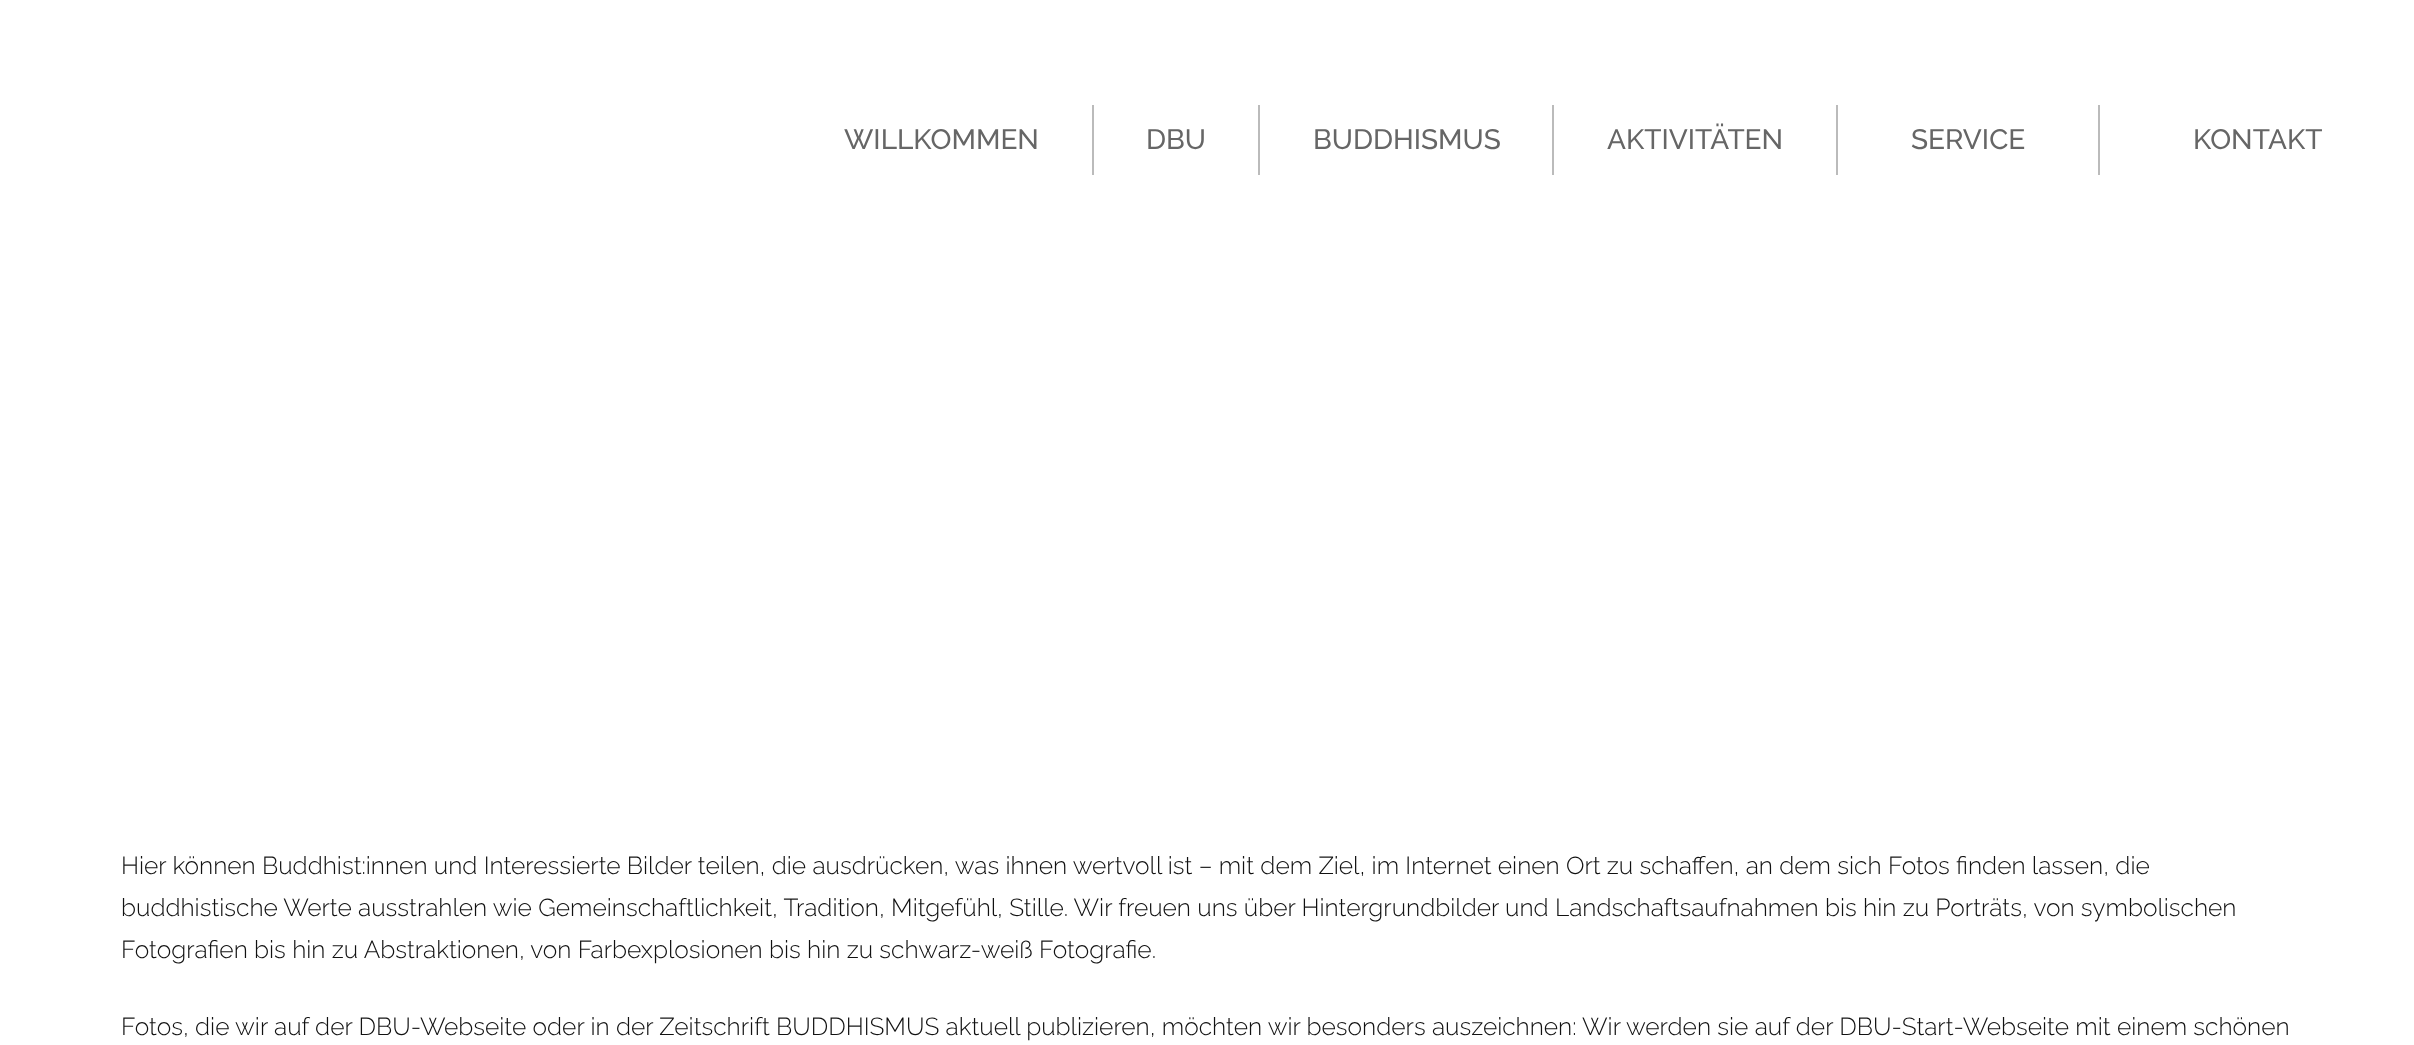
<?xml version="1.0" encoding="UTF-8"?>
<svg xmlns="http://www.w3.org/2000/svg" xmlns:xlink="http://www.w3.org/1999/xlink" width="2414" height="1045">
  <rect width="100%" height="100%" fill="#ffffff" />
  <rect x="1092" y="105" width="2" height="70" fill="#bbbbbb" />
  <rect x="1258" y="105" width="2" height="70" fill="#bbbbbb" />
  <rect x="1552" y="105" width="2" height="70" fill="#bbbbbb" />
  <rect x="1836" y="105" width="2" height="70" fill="#bbbbbb" />
  <rect x="2098" y="105" width="2" height="70" fill="#bbbbbb" />
  <text x="844" y="149" style="font-family: Raleway; font-size: 28px; font-weight: 500; fill: #666666">WILLKOMMEN</text>
  <text x="1146" y="149" style="font-family: Raleway; font-size: 28px; font-weight: 500; fill: #666666">DBU</text>
  <text x="1313" y="149" style="font-family: Raleway; font-size: 28px; font-weight: 500; fill: #666666">BUDDHISMUS</text>
  <text x="1607" y="149" style="font-family: Raleway; font-size: 28px; font-weight: 500; fill: #666666">AKTIVITÄTEN</text>
  <text x="1911" y="149" style="font-family: Raleway; font-size: 28px; font-weight: 500; fill: #666666">SERVICE</text>
  <text x="2193" y="149" style="font-family: Raleway; font-size: 28px; font-weight: 500; fill: #666666">KONTAKT</text>
  <text x="121" y="874" style="font-family: Raleway; font-size: 24.5px; font-weight: 300; fill: #111111">Hier können Buddhist:innen und Interessierte Bilder teilen, die ausdrücken, was ihnen wertvoll ist – mit dem Ziel, im Internet einen Ort zu schaffen, an dem sich Fotos finden lassen, die</text>
  <text x="121" y="916" style="font-family: Raleway; font-size: 24.5px; font-weight: 300; fill: #111111">buddhistische Werte ausstrahlen wie Gemeinschaftlichkeit, Tradition, Mitgefühl, Stille. Wir freuen uns über Hintergrundbilder und Landschaftsaufnahmen bis hin zu Porträts, von symbolischen</text>
  <text x="121" y="958" style="font-family: Raleway; font-size: 24.5px; font-weight: 300; fill: #111111">Fotografien bis hin zu Abstraktionen, von Farbexplosionen bis hin zu schwarz-weiß Fotografie.</text>
  <text x="121" y="1035" style="font-family: Raleway; font-size: 24.5px; font-weight: 300; fill: #111111">Fotos, die wir auf der DBU-Webseite oder in der Zeitschrift BUDDHISMUS aktuell publizieren, möchten wir besonders auszeichnen: Wir werden sie auf der DBU-Start-Webseite mit einem schönen</text>
</svg>
